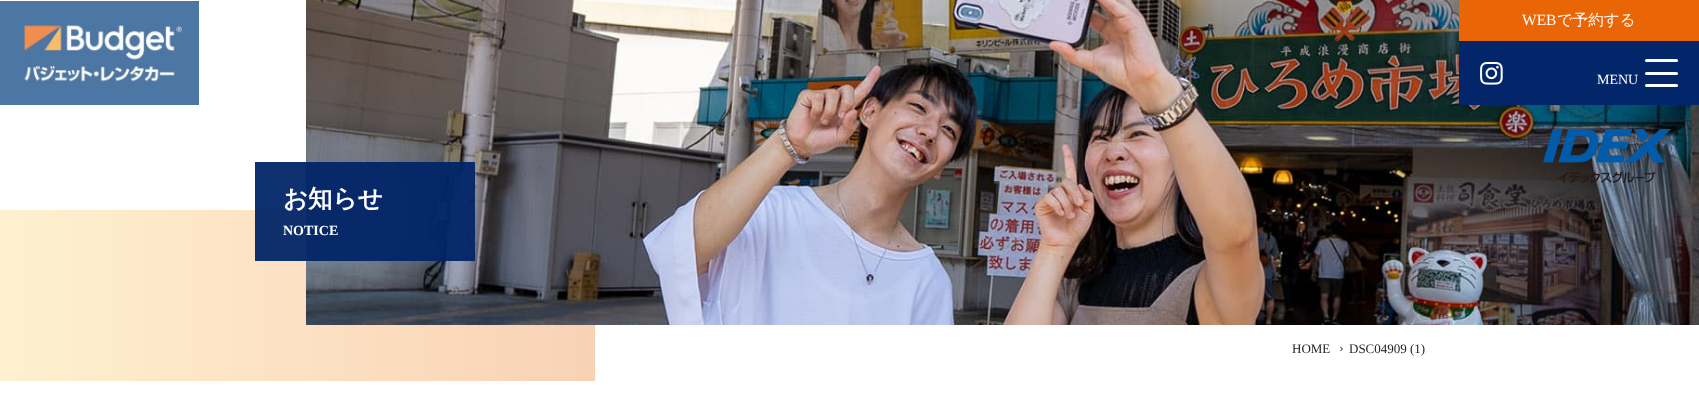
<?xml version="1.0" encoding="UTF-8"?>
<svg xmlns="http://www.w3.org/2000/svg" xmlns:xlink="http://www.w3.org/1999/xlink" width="1699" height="406">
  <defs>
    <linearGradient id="g1" gradientUnits="userSpaceOnUse" x1="0" y1="296" x2="595" y2="296"><stop offset="0" stop-color="#fef1cf" /><stop offset="0.5" stop-color="#fce1c2" /><stop offset="1" stop-color="#f9d2b4" /></linearGradient>
  </defs>
  <rect width="100%" height="100%" fill="#ffffff" />
  <image x="0" y="1" width="199" height="104" xlink:href="image1.png" />
  <rect y="210" width="595" height="171" fill="url(#g1)" />
  <image x="306" y="0" width="1393" height="325" xlink:href="image4.png" />
  <rect x="1459" width="240" height="41" fill="#ea6506" />
  <rect x="1459" y="41" width="240" height="64" fill="#022669" />
  <image x="1480" y="61" width="23" height="24" xlink:href="image2.png" />
  <rect x="1645" y="59" width="33" height="3" rx="1.5" fill="#fefefe" />
  <rect x="1645" y="72" width="33" height="3" rx="1.5" fill="#fefefe" />
  <rect x="1645" y="84" width="33" height="3" rx="1.5" fill="#fefefe" />
  <image x="1543" y="129" width="128" height="54" xlink:href="image3.png" />
  <rect x="255" y="162" width="220" height="99" fill="#022567" fill-opacity="0.95" />
  <image x="1340" y="346" width="3" height="5" xlink:href="image5.png" />
  <text x="1522" y="25" style="font-family: Liberation Serif; font-size: 15.5px; fill: #fefefe">WEB</text>
  <text x="1557" y="25" style="font-family: WenQuanYi Zen Hei; font-size: 15.5px; font-weight: 500; fill: #fefefe">で予約する</text>
  <text x="1597" y="84" style="font-family: Liberation Serif; font-size: 14px; fill: #fefefe">MENU</text>
  <text x="283" y="207" style="font-family: WenQuanYi Zen Hei; font-size: 24.5px; font-weight: bold; fill: #fefefe">お知らせ</text>
  <text x="283" y="235" style="font-family: Liberation Serif; font-size: 14px; font-weight: bold; fill: #fefefe">NOTICE</text>
  <text x="1292" y="353" style="font-family: Liberation Serif; font-size: 13px; fill: #242424">HOME</text>
  <text x="1349" y="353" style="font-family: Liberation Serif; font-size: 13px; fill: #242424">DSC04909 (1)</text>
</svg>
